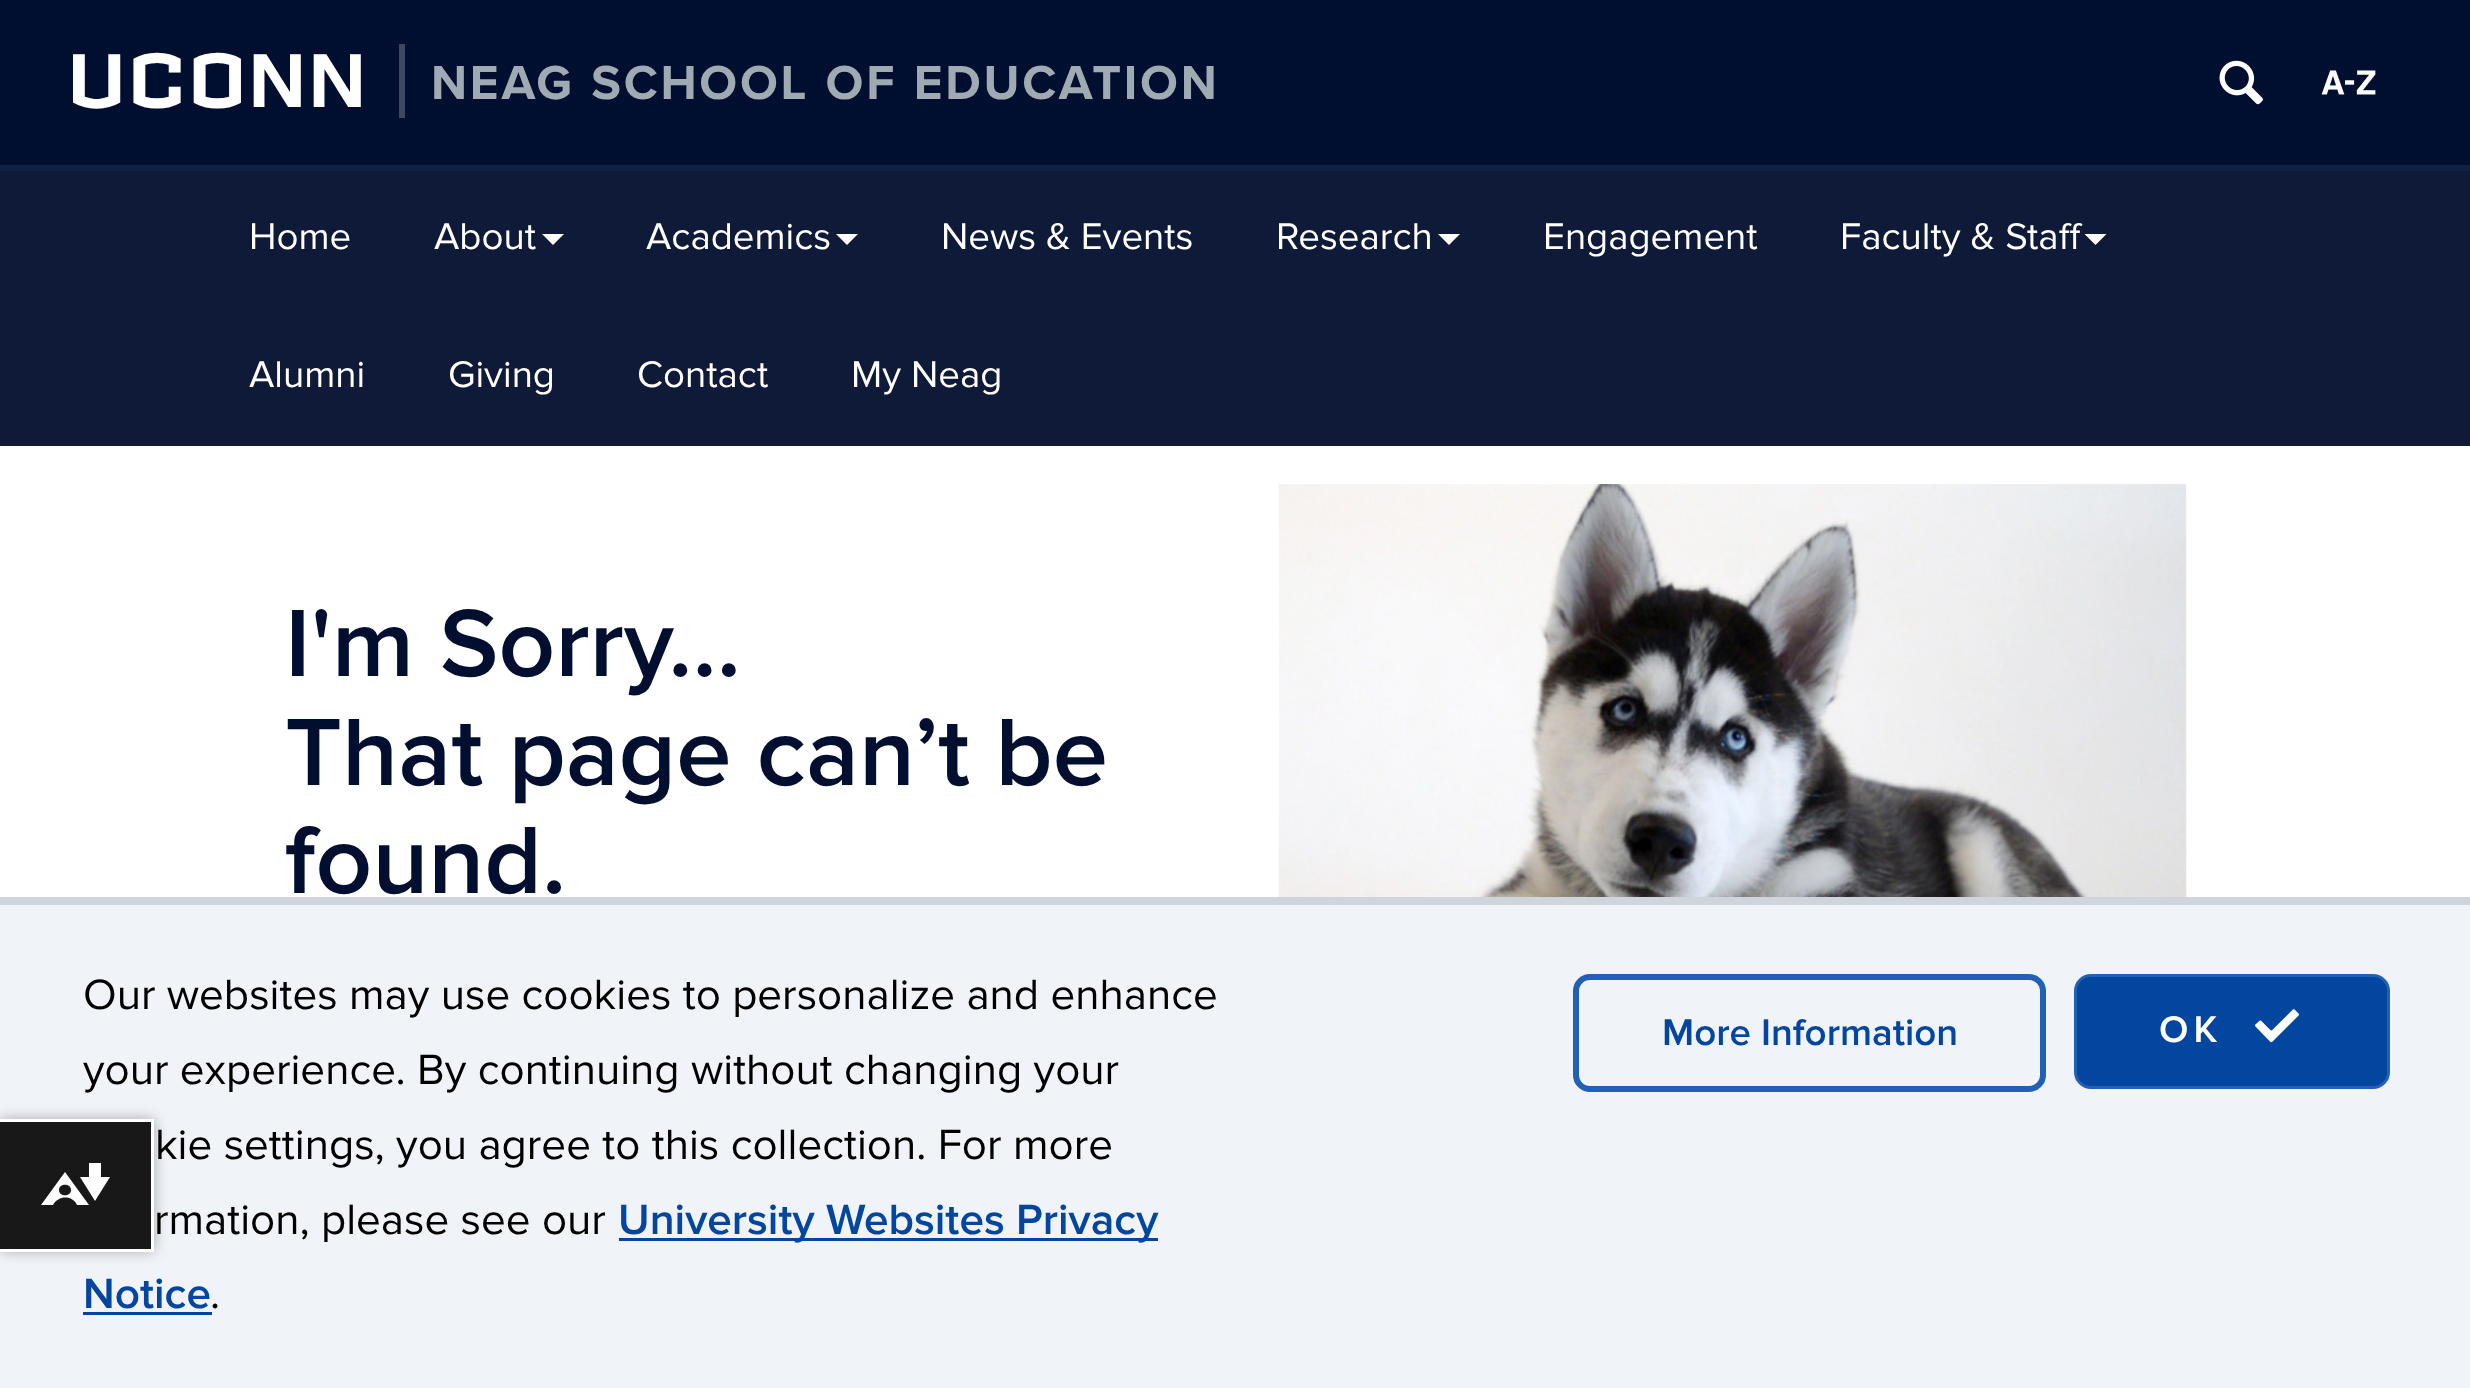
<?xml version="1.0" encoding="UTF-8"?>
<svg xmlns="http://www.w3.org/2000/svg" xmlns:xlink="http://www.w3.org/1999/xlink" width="2470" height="1388">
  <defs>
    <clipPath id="clip1"><path d="M 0 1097 h 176 v 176 h -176 z m 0 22 h 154 v 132 h -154 z" clip-rule="evenodd" /></clipPath>
  </defs>
  <rect width="100%" height="100%" fill="#ffffff" />
  <rect width="2470" height="165" fill="#000e2f" />
  <rect y="165" width="2470" height="6" fill="#0e2245" />
  <rect x="399" y="44" width="6" height="74" fill="#3f4760" />
  <image x="2219" y="60" width="44" height="45" xlink:href="image1.png" />
  <image x="2321" y="70" width="55" height="25" xlink:href="image2.png" />
  <rect y="171" width="2470" height="275" fill="#0f1938" />
  <path d="M 542 234 h 22 l -11 11 z" fill="#ffffff" />
  <path d="M 836 234 h 22 l -11 11 z" fill="#ffffff" />
  <path d="M 1438 234 h 22 l -11 11 z" fill="#ffffff" />
  <path d="M 2084.5 234 h 22 l -11 11 z" fill="#ffffff" />
  <image x="1278" y="484" width="909" height="413" xlink:href="image3.png" />
  <rect y="905" width="2470" height="483" fill="#f0f3f7" />
  <rect y="897" width="2470" height="8" fill="#cfd5dd" />
  <rect x="619" y="1238" width="539" height="3" fill="#03469f" />
  <rect x="83" y="1312" width="129" height="3" fill="#03469f" />
  <rect x="1576" y="977" width="467" height="112" rx="14" fill="none" stroke="#2061b6" stroke-width="6" />
  <rect x="2075.5" y="975.5" width="313" height="112" rx="15.5" fill="#03469f" stroke="#2061b6" stroke-width="3" />
  <image x="2255" y="1009" width="44" height="34" xlink:href="image4.png" />
  <g clip-path="url(#clip1)">
    <rect y="1119" width="154" height="132" fill="#000000" fill-opacity="0.3" filter="blur(7px)" />
  </g>
  <rect y="1122" width="151" height="127" fill="#000000" fill-opacity="0.9" />
  <rect y="1119" width="154" height="3" fill="#ffffff" />
  <rect x="151" y="1119" width="3" height="132" fill="#ffffff" />
  <rect y="1249" width="154" height="3" fill="#ffffff" />
  <path d="M 110 1177 l -15 24 l -15 -24 h 9 v -14 h 12 v 14 z m -69 28 l 24 -33 l 24 33 h -12 c -4 -10 -19 -10 -24 0 z m 18 -15 c 0 7 12 7 12 0 c 0 -7 -12 -7 -12 0 z" fill="#ffffff" fill-rule="evenodd" />
  <text x="73" y="107" style="font-family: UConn; font-size: 88px; letter-spacing: 8.25px; fill: #ffffff">UCONN</text>
  <text x="431" y="99" word-spacing="1" style="font-family: Proxima Nova; font-size: 49.5px; font-weight: bold; letter-spacing: 2.75px; fill: #9faab2">NEAG SCHOOL OF EDUCATION</text>
  <text x="249" y="249" style="font-family: Proxima Nova; font-size: 38.5px; fill: #ffffff">Home</text>
  <text x="434" y="249" style="font-family: Proxima Nova; font-size: 38.5px; fill: #ffffff">About</text>
  <text x="646" y="249" style="font-family: Proxima Nova; font-size: 38.5px; fill: #ffffff">Academics</text>
  <text x="941" y="249" style="font-family: Proxima Nova; font-size: 38.5px; fill: #ffffff">News &amp; Events</text>
  <text x="1276" y="249" style="font-family: Proxima Nova; font-size: 38.5px; fill: #ffffff">Research</text>
  <text x="1543" y="249" style="font-family: Proxima Nova; font-size: 38.5px; fill: #ffffff">Engagement</text>
  <text x="1840" y="249" style="font-family: Proxima Nova; font-size: 38.5px; fill: #ffffff">Faculty &amp; Staff</text>
  <text x="249" y="387" style="font-family: Proxima Nova; font-size: 38.5px; fill: #ffffff">Alumni</text>
  <text x="448" y="387" style="font-family: Proxima Nova; font-size: 38.5px; fill: #ffffff">Giving</text>
  <text x="637" y="387" style="font-family: Proxima Nova; font-size: 38.5px; fill: #ffffff">Contact</text>
  <text x="851" y="387" style="font-family: Proxima Nova; font-size: 38.5px; fill: #ffffff">My Neag</text>
  <text x="285" y="676" style="font-family: Proxima Nova; font-size: 99px; font-weight: 600; fill: #000f30">I'm Sorry...</text>
  <text x="285" y="785" style="font-family: Proxima Nova; font-size: 99px; font-weight: 600; fill: #000f30">That page can’t be</text>
  <text x="285" y="893" style="font-family: Proxima Nova; font-size: 99px; font-weight: 600; fill: #000f30">found.</text>
  <text x="83" y="1009" style="font-family: Proxima Nova; font-size: 44px; fill: #000000">Our websites may use cookies to personalize and enhance</text>
  <text x="83" y="1084" style="font-family: Proxima Nova; font-size: 44px; fill: #000000">your experience. By continuing without changing your</text>
  <text x="155" y="1159" style="font-family: Proxima Nova; font-size: 44px; fill: #000000">kie settings, you agree to this collection. For more</text>
  <text x="154" y="1234" style="font-family: Proxima Nova; font-size: 44px; fill: #000000">rmation, please see our</text>
  <text x="618" y="1234" style="font-family: Proxima Nova; font-size: 44px; font-weight: 600; fill: #03469f">University Websites Privacy</text>
  <text x="83" y="1308" style="font-family: Proxima Nova; font-size: 44px; font-weight: 600; fill: #03469f">Notice</text>
  <text x="210" y="1308" style="font-family: Proxima Nova; font-size: 44px; fill: #000000">.</text>
  <text x="1662" y="1045" style="font-family: Proxima Nova; font-size: 38.5px; font-weight: 600; fill: #03469f">More Information</text>
  <text x="2159" y="1042" style="font-family: Proxima Nova; font-size: 38.5px; font-weight: 600; letter-spacing: 5px; fill: #ffffff">OK</text>
</svg>
